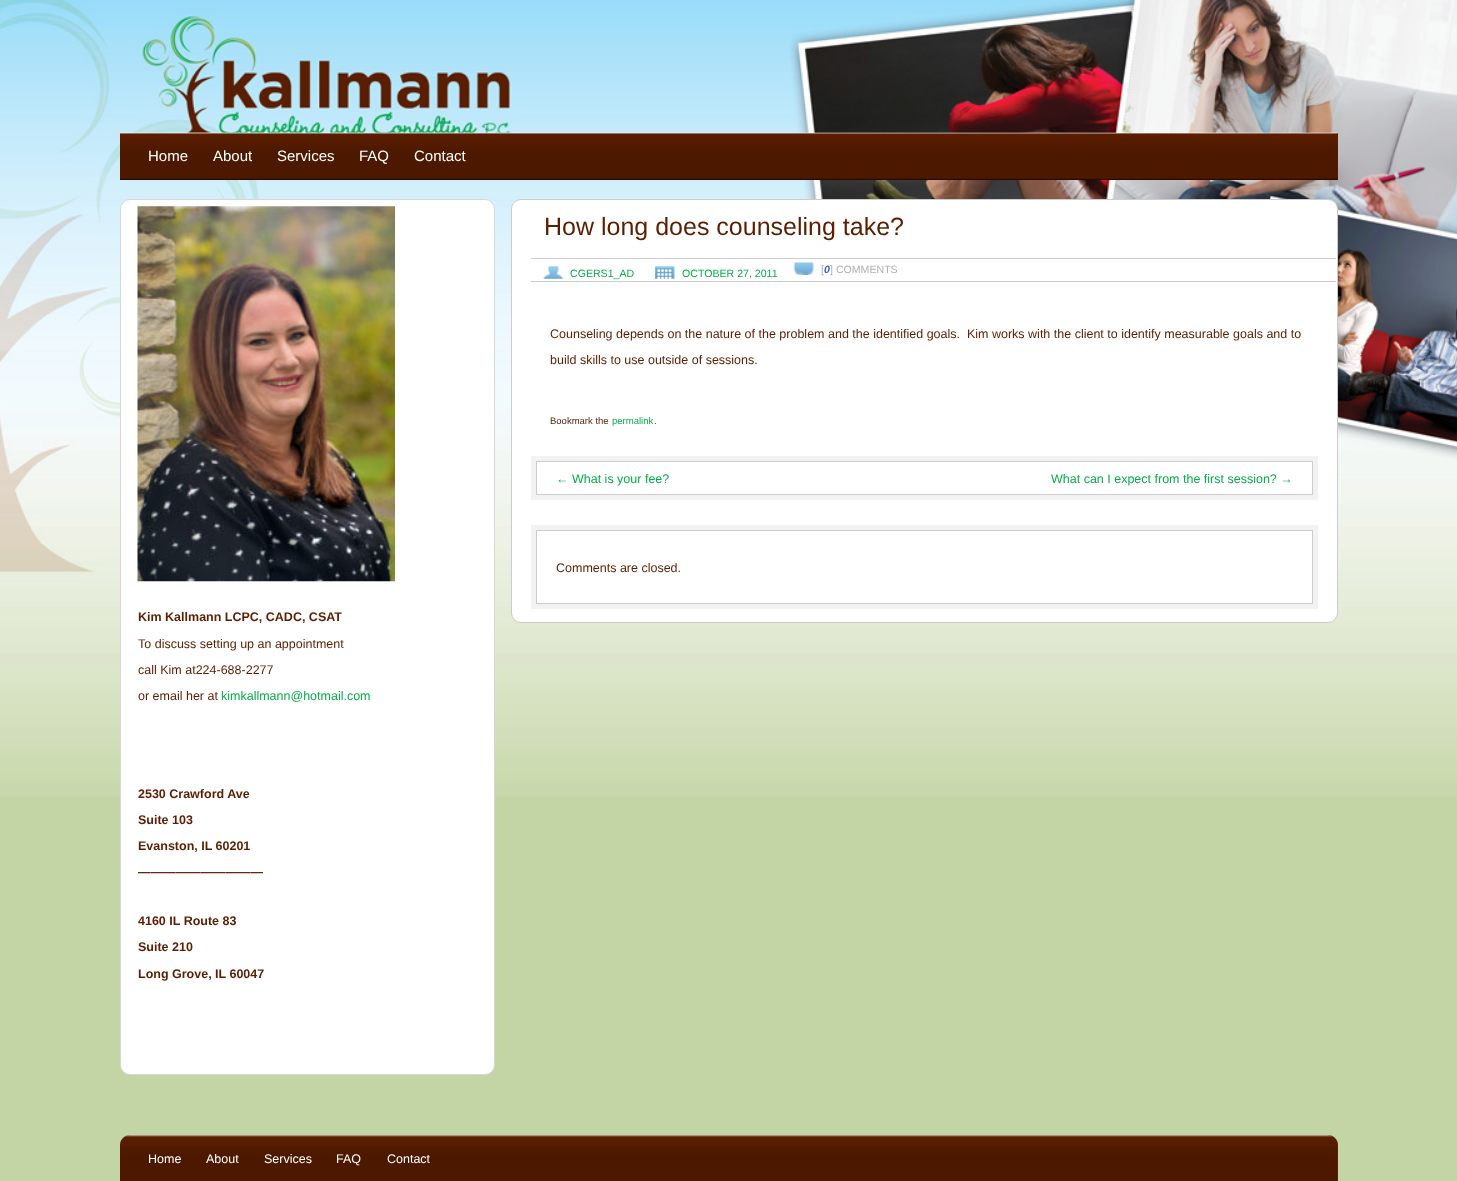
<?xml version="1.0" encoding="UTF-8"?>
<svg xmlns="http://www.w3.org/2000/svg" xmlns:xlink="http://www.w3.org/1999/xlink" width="1457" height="1181">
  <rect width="100%" height="100%" fill="#c3d5a5" />
  <image x="0" y="0" width="1457" height="797" xlink:href="image1.png" />
  <rect x="120" y="133" width="1218" height="47" fill="#5b1e01" />
  <image x="120" y="132" width="1218" height="48" xlink:href="image2.png" />
  <rect x="511.5" y="199.5" width="826" height="423" rx="9.5" fill="#ffffff" stroke="#cccccc" />
  <rect x="531" y="258" width="805" height="1" fill="#cccccc" />
  <rect x="531" y="281" width="805" height="1" fill="#cccccc" />
  <image x="543" y="266" width="21" height="13" xlink:href="image3.png" />
  <image x="654" y="266" width="21" height="13" xlink:href="image4.png" />
  <image x="793" y="262" width="21" height="13" xlink:href="image5.png" />
  <rect x="531" y="456" width="787" height="44" fill="#f2f2f2" />
  <rect x="536.5" y="461.5" width="776" height="33" fill="#ffffff" stroke="#cccccc" />
  <rect x="531" y="525" width="787" height="84" fill="#f2f2f2" />
  <rect x="536.5" y="530.5" width="776" height="73" fill="#ffffff" stroke="#cccccc" />
  <rect x="120.5" y="199.5" width="374" height="875" rx="9.5" fill="#ffffff" stroke="#d7d7d7" />
  <image x="137" y="206" width="258" height="376" xlink:href="image6.png" />
  <path d="M 130 1135 h 1198 c 5.5 0 10 4.5 10 10 v 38 h -1218 v -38 c 0 -5.5 4.5 -10 10 -10 z" fill="#5b1e01" />
  <image x="120" y="1135" width="1217" height="46" xlink:href="image7.png" />
  <text x="148" y="161" style="font-family: Liberation Sans; font-size: 15px; fill: #ffffff">Home</text>
  <text x="213" y="161" style="font-family: Liberation Sans; font-size: 15px; fill: #ffffff">About</text>
  <text x="277" y="161" style="font-family: Liberation Sans; font-size: 15px; fill: #ffffff">Services</text>
  <text x="359" y="161" style="font-family: Liberation Sans; font-size: 15px; fill: #ffffff">FAQ</text>
  <text x="414" y="161" style="font-family: Liberation Sans; font-size: 15px; fill: #ffffff">Contact</text>
  <text x="544" y="235" style="font-family: Liberation Sans; font-size: 25px; fill: #5b1e01">How long does counseling take?</text>
  <text x="570" y="277" style="font-family: Liberation Sans; font-size: 10.6px; fill: #09ad4a">CGERS1_AD</text>
  <text x="682" y="277" style="font-family: Liberation Sans; font-size: 10.6px; fill: #09ad4a">OCTOBER 27, 2011</text>
  <text x="821" y="273" style="font-family: Liberation Sans; font-size: 10.6px; fill: #afafaf">[</text>
  <text x="824" y="273" style="font-family: Liberation Sans; font-size: 10.6px; font-weight: bold; font-style: italic; fill: #3366cc">0</text>
  <text x="830" y="273" style="font-family: Liberation Sans; font-size: 10.6px; fill: #afafaf">] COMMENTS</text>
  <text x="550" y="338" style="font-family: Liberation Sans; font-size: 12.5px; fill: #5b1e01" xml:space="preserve">Counseling depends on the nature of the problem and the identified goals.  Kim works with the client to identify measurable goals and to</text>
  <text x="550" y="364" style="font-family: Liberation Sans; font-size: 12.5px; fill: #5b1e01">build skills to use outside of sessions.</text>
  <text x="550" y="424" style="font-family: Liberation Sans; font-size: 9.5px; fill: #5b1e01">Bookmark the</text>
  <text x="612" y="424" style="font-family: Liberation Sans; font-size: 9.5px; fill: #09ad4a">permalink</text>
  <text x="654" y="424" style="font-family: Liberation Sans; font-size: 9.5px; fill: #5b1e01">.</text>
  <text x="556" y="483" style="font-family: Liberation Sans; font-size: 12.5px; fill: #09ad4a">← What is your fee?</text>
  <text x="1051" y="483" style="font-family: Liberation Sans; font-size: 12.5px; fill: #09ad4a">What can I expect from the first session? →</text>
  <text x="556" y="572" style="font-family: Liberation Sans; font-size: 12.5px; fill: #5b1e01">Comments are closed.</text>
  <text x="138" y="621" style="font-family: Liberation Sans; font-size: 12.5px; font-weight: bold; fill: #5b1e01">Kim Kallmann LCPC, CADC, CSAT</text>
  <text x="138" y="648" style="font-family: Liberation Sans; font-size: 12.5px; fill: #5b1e01">To discuss setting up an appointment</text>
  <text x="138" y="674" style="font-family: Liberation Sans; font-size: 12.5px; fill: #5b1e01">call Kim at224-688-2277</text>
  <text x="138" y="700" style="font-family: Liberation Sans; font-size: 12.5px; fill: #5b1e01">or email her at</text>
  <text x="221" y="700" style="font-family: Liberation Sans; font-size: 12.5px; fill: #09ad4a">kimkallmann@hotmail.com</text>
  <text x="138" y="798" style="font-family: Liberation Sans; font-size: 12.5px; font-weight: bold; fill: #5b1e01">2530 Crawford Ave</text>
  <text x="138" y="824" style="font-family: Liberation Sans; font-size: 12.5px; font-weight: bold; fill: #5b1e01">Suite 103</text>
  <text x="138" y="850" style="font-family: Liberation Sans; font-size: 12.5px; font-weight: bold; fill: #5b1e01">Evanston, IL 60201</text>
  <text x="138" y="876" style="font-family: Liberation Sans; font-size: 12.5px; font-weight: bold; fill: #5b1e01">——————————</text>
  <text x="138" y="925" style="font-family: Liberation Sans; font-size: 12.5px; font-weight: bold; fill: #5b1e01">4160 IL Route 83</text>
  <text x="138" y="951" style="font-family: Liberation Sans; font-size: 12.5px; font-weight: bold; fill: #5b1e01">Suite 210</text>
  <text x="138" y="978" style="font-family: Liberation Sans; font-size: 12.5px; font-weight: bold; fill: #5b1e01">Long Grove, IL 60047</text>
  <text x="148" y="1163" style="font-family: Liberation Sans; font-size: 12.5px; fill: #ffffff">Home</text>
  <text x="206" y="1163" style="font-family: Liberation Sans; font-size: 12.5px; fill: #ffffff">About</text>
  <text x="264" y="1163" style="font-family: Liberation Sans; font-size: 12.5px; fill: #ffffff">Services</text>
  <text x="336" y="1163" style="font-family: Liberation Sans; font-size: 12.5px; fill: #ffffff">FAQ</text>
  <text x="387" y="1163" style="font-family: Liberation Sans; font-size: 12.5px; fill: #ffffff">Contact</text>
</svg>
